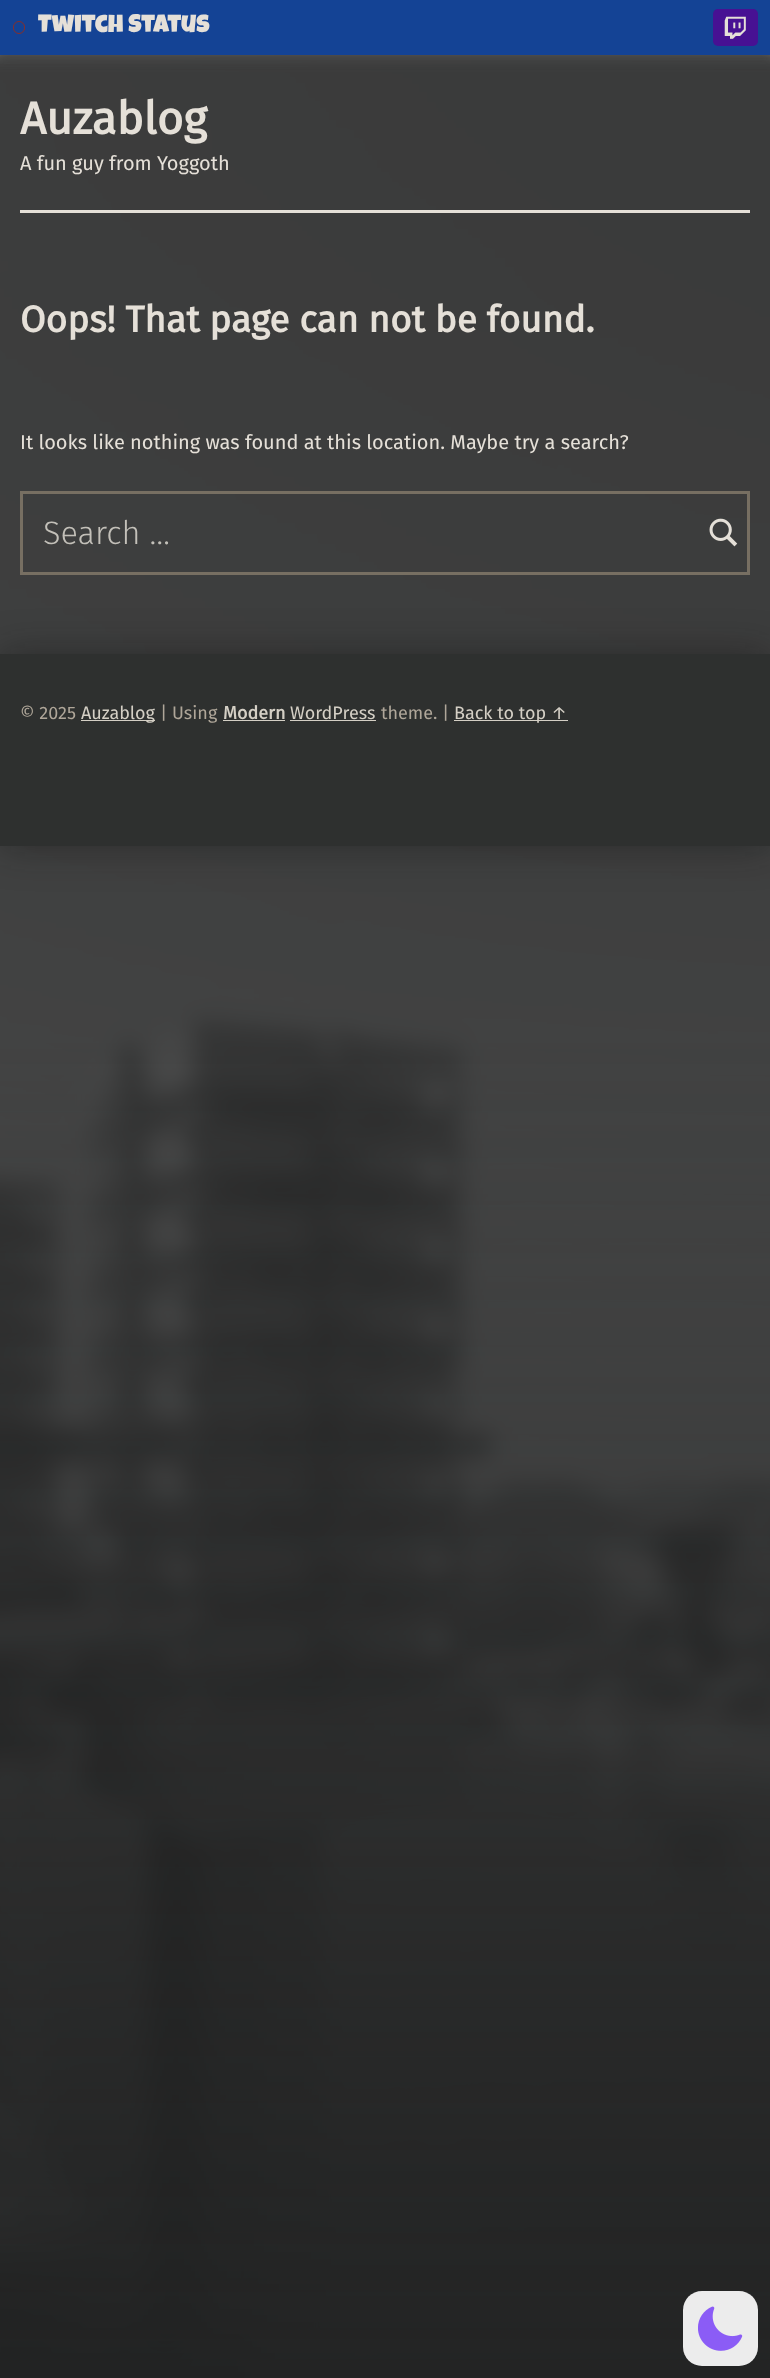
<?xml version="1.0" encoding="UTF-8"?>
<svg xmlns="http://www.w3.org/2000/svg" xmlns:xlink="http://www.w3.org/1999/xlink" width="770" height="2378">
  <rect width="100%" height="100%" fill="#ffffff" />
  <image x="0" y="55" width="770" height="2323" xlink:href="image2.png" />
  <rect y="5" width="770" height="55" fill="#0d0d0d" fill-opacity="0.2" filter="blur(5px)" />
  <rect width="770" height="55" fill="#144395" />
  <rect x="13.5" y="21.5" width="11" height="12" rx="5.5" fill="none" stroke="#872f2a" />
  <rect x="713" y="9" width="45" height="37" rx="5" fill="#471193" />
  <image x="724" y="16" width="22" height="23" xlink:href="image1.png" />
  <rect x="20" y="210" width="730" height="3" fill="#e5e0d8" />
  <rect x="21.5" y="492.5" width="727" height="81" fill="none" stroke="#776f62" stroke-width="3" />
  <image x="709" y="518" width="29" height="29" xlink:href="image3.png" />
  <rect y="654" width="770" height="192" fill="#0d0d0d" fill-opacity="0.4" filter="blur(20px)" />
  <rect y="654" width="770" height="192" fill="#2e302f" />
  <rect x="81" y="720" width="74" height="1" fill="#d4cfc5" />
  <rect x="223" y="720" width="62" height="1" fill="#d4cfc5" />
  <rect x="290" y="720" width="86" height="1" fill="#d4cfc5" />
  <rect x="454" y="720" width="114" height="1" fill="#d4cfc5" />
  <rect x="683" y="2291" width="75" height="75" rx="19" fill="#ececec" />
  <image x="698" y="2306" width="45" height="45" xlink:href="image4.png" />
  <text x="38" y="32" style="font-family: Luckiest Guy; font-size: 25px; fill: #e5e0d8">Twitch Status</text>
  <text x="20" y="134" style="font-family: Fira Sans; font-size: 45.5px; font-weight: bold; fill: #e5e0d8">Auzablog</text>
  <text x="20" y="170" style="font-family: Fira Sans; font-size: 20px; fill: #e5e0d8">A fun guy from Yoggoth</text>
  <text x="20" y="332" style="font-family: Fira Sans; font-size: 37px; font-weight: bold; fill: #e5e0d8">Oops! That page can not be found.</text>
  <text x="20" y="449" style="font-family: Fira Sans; font-size: 20px; fill: #e5e0d8">It looks like nothing was found at this location. Maybe try a search?</text>
  <text x="43" y="544" style="font-family: Fira Sans; font-size: 32.5px; font-weight: 300; fill: #c3c0b9">Search …</text>
  <text x="20" y="719" style="font-family: Fira Sans; font-size: 18px; fill: #afa699">© 2025</text>
  <text x="81" y="719" style="font-family: Fira Sans; font-size: 18px; fill: #d4cfc5">Auzablog</text>
  <text x="160" y="719" style="font-family: Fira Sans; font-size: 18px; fill: #afa699">| Using</text>
  <text x="223" y="719" style="font-family: Fira Sans; font-size: 18px; font-weight: bold; fill: #d4cfc5">Modern</text>
  <text x="290" y="719" style="font-family: Fira Sans; font-size: 18px; fill: #d4cfc5">WordPress</text>
  <text x="381" y="719" style="font-family: Fira Sans; font-size: 18px; fill: #afa699">theme. |</text>
  <text x="454" y="719" style="font-family: Fira Sans; font-size: 18px; fill: #d4cfc5">Back to top ↑</text>
</svg>
